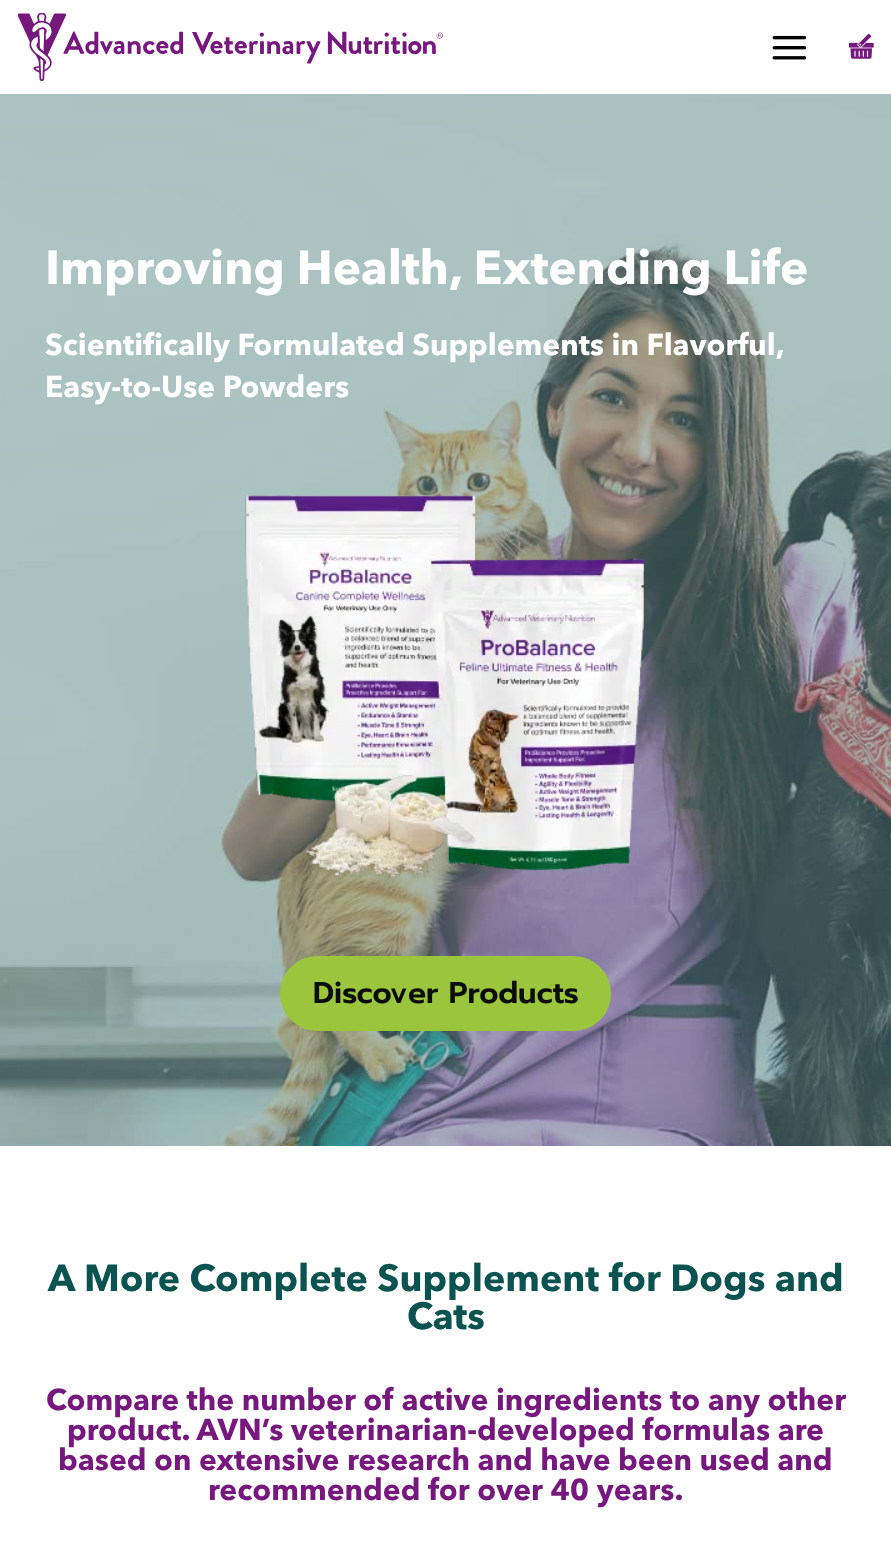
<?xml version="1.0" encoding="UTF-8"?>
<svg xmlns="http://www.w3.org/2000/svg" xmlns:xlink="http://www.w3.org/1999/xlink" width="891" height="1564">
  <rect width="100%" height="100%" fill="#ffffff" />
  <image x="18" y="13" width="425" height="68" xlink:href="image1.png" />
  <image x="772" y="35" width="35" height="25" xlink:href="image2.png" />
  <image x="849" y="34" width="25" height="25" xlink:href="image3.png" />
  <image x="0" y="94" width="891" height="1052" xlink:href="image4.png" />
  <image x="245" y="495" width="400" height="390" xlink:href="image5.png" />
  <rect x="281.5" y="957.5" width="328" height="72" rx="36" fill="#9bc53d" stroke="#9bc53d" stroke-width="3" />
  <text x="45" y="284" style="font-family: Avenir Next; font-size: 47.5px; font-weight: bold; fill: #ffffff">Improving Health, Extending Life</text>
  <text x="45" y="355" style="font-family: Avenir Next; font-size: 30px; font-weight: bold; fill: #ffffff">Scientifically Formulated Supplements in Flavorful,</text>
  <text x="45" y="397" style="font-family: Avenir Next; font-size: 30px; font-weight: bold; fill: #ffffff">Easy-to-Use Powders</text>
  <text x="313" y="1003" style="font-family: Prompt; font-size: 30px; font-weight: 600; fill: #0c0c0a">Discover Products</text>
  <text x="48" y="1291" style="font-family: Avenir Next; font-size: 37.5px; font-weight: bold; fill: #0b5351">A More Complete Supplement for Dogs and</text>
  <text x="407" y="1329" style="font-family: Avenir Next; font-size: 37.5px; font-weight: bold; fill: #0b5351">Cats</text>
  <text x="46" y="1410" style="font-family: Avenir Next; font-size: 30px; font-weight: bold; fill: #76187e">Compare the number of active ingredients to any other</text>
  <text x="67" y="1440" style="font-family: Avenir Next; font-size: 30px; font-weight: bold; fill: #76187e">product. AVN’s veterinarian-developed formulas are</text>
  <text x="58" y="1470" style="font-family: Avenir Next; font-size: 30px; font-weight: bold; fill: #76187e">based on extensive research and have been used and</text>
  <text x="208" y="1500" style="font-family: Avenir Next; font-size: 30px; font-weight: bold; fill: #76187e">recommended for over 40 years.</text>
</svg>
